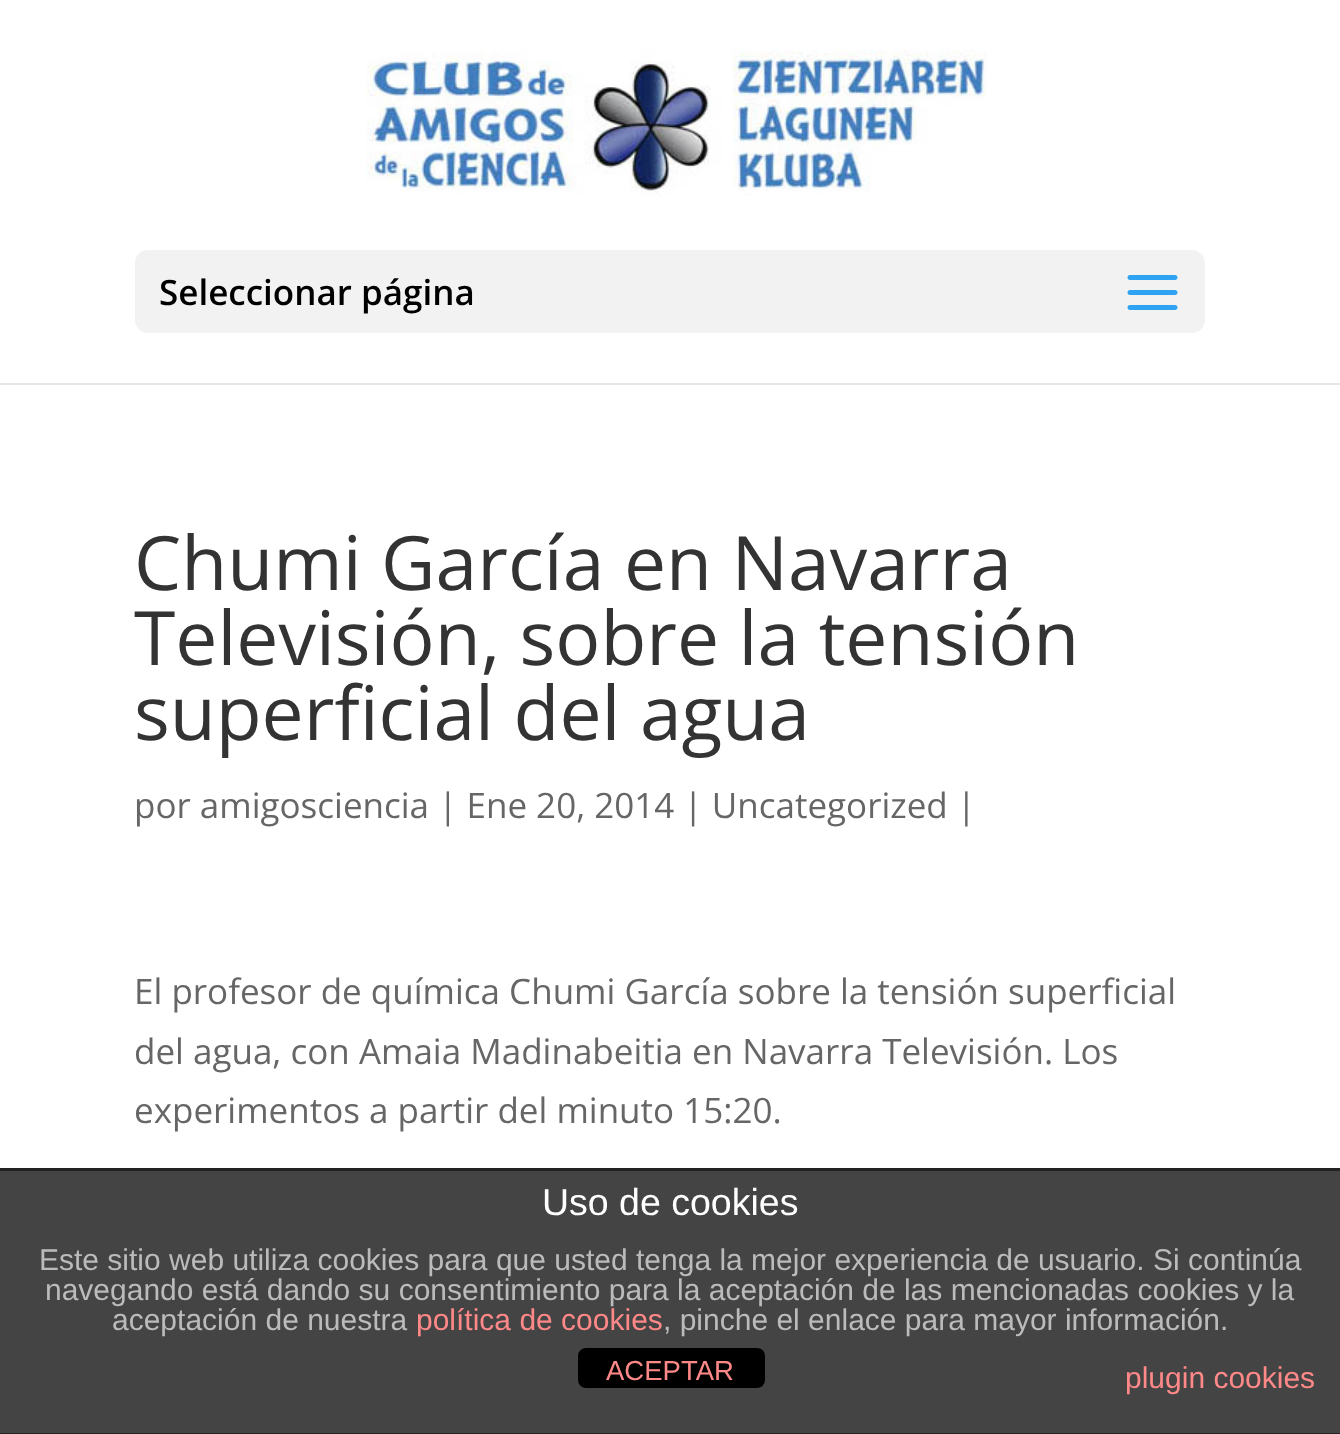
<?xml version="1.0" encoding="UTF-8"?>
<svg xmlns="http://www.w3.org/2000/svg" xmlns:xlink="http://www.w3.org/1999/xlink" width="1340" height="1434">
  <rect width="100%" height="100%" fill="#ffffff" />
  <rect y="383" width="1340" height="2" fill="#e6e6e6" />
  <image x="366" y="50" width="620" height="146" xlink:href="image1.png" />
  <rect x="135" y="250" width="1070" height="83" rx="13" fill="#f2f2f2" />
  <image x="1127" y="275" width="51" height="35" xlink:href="image2.png" />
  <rect y="1171" width="1340" height="262" fill="#444444" />
  <rect y="1168" width="1340" height="3" fill="#222222" />
  <rect y="1433" width="1340" height="1" fill="#222222" />
  <rect x="578" y="1348" width="187" height="40" rx="8" fill="#000000" />
  <text x="159" y="305" style="font-family: Open Sans; font-size: 35px; font-weight: 600; fill: #000000">Seleccionar página</text>
  <text x="134" y="590" style="font-family: Open Sans; font-size: 75px; fill: #333333">Chumi García en Navarra</text>
  <text x="134" y="665" style="font-family: Open Sans; font-size: 75px; fill: #333333">Televisión, sobre la tensión</text>
  <text x="134" y="740" style="font-family: Open Sans; font-size: 75px; fill: #333333">superficial del agua</text>
  <text x="134" y="818" style="font-family: Open Sans; font-size: 35px; fill: #666666">por amigosciencia | Ene 20, 2014 | Uncategorized |</text>
  <text x="134" y="1004" style="font-family: Open Sans; font-size: 35px; fill: #666666">El profesor de química Chumi García sobre la tensión superficial</text>
  <text x="134" y="1064" style="font-family: Open Sans; font-size: 35px; fill: #666666">del agua, con Amaia Madinabeitia en Navarra Televisión. Los</text>
  <text x="134" y="1123" style="font-family: Open Sans; font-size: 35px; fill: #666666">experimentos a partir del minuto 15:20.</text>
  <text x="542" y="1215" style="font-family: Liberation Sans; font-size: 37.5px; fill: #ffffff">Uso de cookies</text>
  <text x="39" y="1270" style="font-family: Liberation Sans; font-size: 30px; fill: #bbbbbb">Este sitio web utiliza cookies para que usted tenga la mejor experiencia de usuario. Si continúa</text>
  <text x="45" y="1300" style="font-family: Liberation Sans; font-size: 30px; fill: #bbbbbb">navegando está dando su consentimiento para la aceptación de las mencionadas cookies y la</text>
  <text x="112" y="1330" style="font-family: Liberation Sans; font-size: 30px; fill: #bbbbbb">aceptación de nuestra</text>
  <text x="416" y="1330" style="font-family: Liberation Sans; font-size: 30px; fill: #ff8888">política de cookies</text>
  <text x="663" y="1330" style="font-family: Liberation Sans; font-size: 30px; fill: #bbbbbb">, pinche el enlace para mayor información.</text>
  <text x="1125" y="1388" style="font-family: Liberation Sans; font-size: 30px; fill: #ff8888">plugin cookies</text>
  <text x="606" y="1380" style="font-family: Liberation Sans; font-size: 27.5px; fill: #ff8888">ACEPTAR</text>
</svg>
